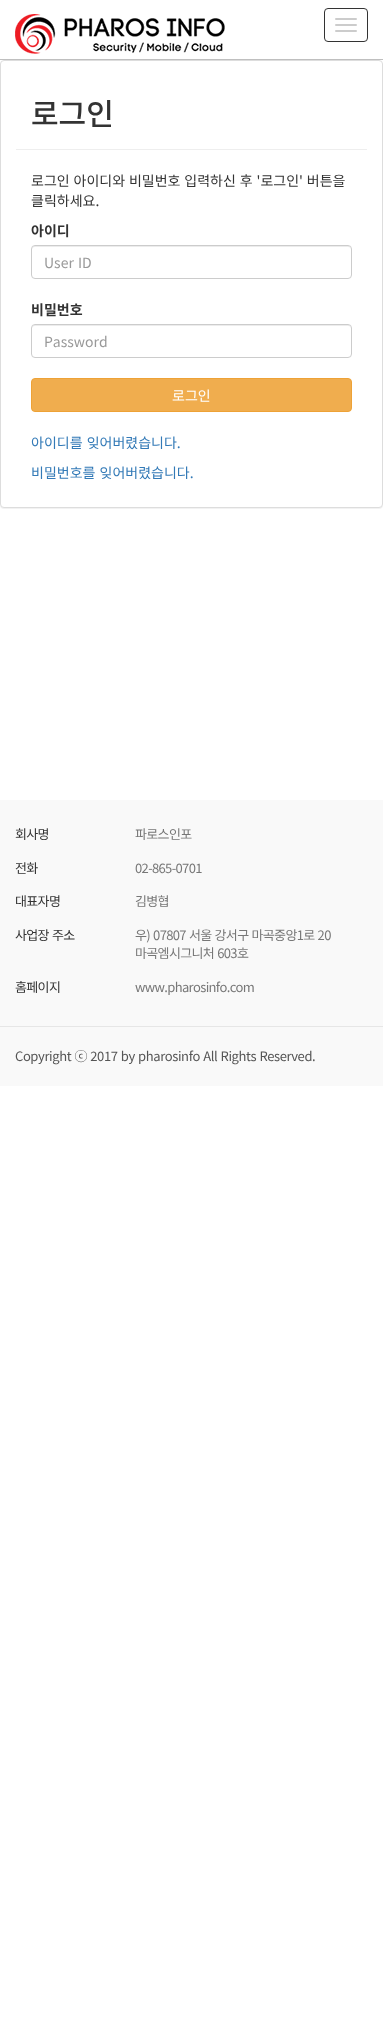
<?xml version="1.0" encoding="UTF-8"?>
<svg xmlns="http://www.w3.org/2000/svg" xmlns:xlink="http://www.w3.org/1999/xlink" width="383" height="2030">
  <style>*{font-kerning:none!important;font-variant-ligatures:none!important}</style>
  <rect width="100%" height="100%" fill="#ffffff" />
  <rect y="61" width="383" height="448" rx="4" fill="#000000" fill-opacity="0.05" filter="blur(0.5px)" />
  <rect y="59" width="383" height="1" fill="#bfbfbf" />
  <image x="15" y="14" width="210" height="40" xlink:href="image1.png" />
  <rect x="324.5" y="8.5" width="43" height="33" rx="3.5" fill="none" stroke="#333333" />
  <rect x="335" y="18" width="22" height="2" rx="1" fill="#cccccc" />
  <rect x="335" y="24" width="22" height="2" rx="1" fill="#cccccc" />
  <rect x="335" y="30" width="22" height="2" rx="1" fill="#cccccc" />
  <rect x="0.5" y="60.5" width="382" height="447" rx="3.5" fill="#ffffff" stroke="#dddddd" />
  <rect x="16" y="149" width="351" height="1" fill="#eeeeee" />
  <path d="M 35 247 h 313 c 2 0 3 1 3 3 l -1 -3 l -1 -1 h -314 c -2 0 -3 2 -3 4 c 0 -2 1 -3 3 -3 z" fill="#ececec" />
  <rect x="31.5" y="245.5" width="320" height="33" rx="3.5" fill="none" stroke="#cccccc" />
  <path d="M 35 326 h 313 c 2 0 3 1 3 3 l -1 -3 l -1 -1 h -314 c -2 0 -3 2 -3 4 c 0 -2 1 -3 3 -3 z" fill="#ececec" />
  <rect x="31.5" y="324.5" width="320" height="33" rx="3.5" fill="none" stroke="#cccccc" />
  <rect x="31.5" y="378.5" width="320" height="33" rx="3.5" fill="#f0ad4e" stroke="#eea236" />
  <rect y="800" width="383" height="286" fill="#f9f9f9" />
  <rect y="1026" width="383" height="1" fill="#e6e6e6" />
  <text x="31" y="125" style="font-family: Noto Sans KR; font-size: 30px; font-weight: 500; fill: #333333">로그인</text>
  <text x="31" y="186" word-spacing="0.75" style="font-family: Noto Sans KR; font-size: 14px; fill: #333333">로그인 아이디와 비밀번호 입력하신 후 '로그인' 버튼을</text>
  <text x="31" y="206" style="font-family: Noto Sans KR; font-size: 14px; fill: #333333">클릭하세요.</text>
  <text x="31" y="236" style="font-family: Noto Sans KR; font-size: 14px; font-weight: bold; fill: #333333">아이디</text>
  <text x="44" y="268" word-spacing="1" style="font-family: Noto Sans KR; font-size: 14px; fill: #999999">User ID</text>
  <text x="31" y="315" style="font-family: Noto Sans KR; font-size: 14px; font-weight: bold; fill: #333333">비밀번호</text>
  <text x="44" y="347" style="font-family: Noto Sans KR; font-size: 14px; fill: #999999">Password</text>
  <text x="172" y="401" style="font-family: Noto Sans KR; font-size: 14px; fill: #ffffff">로그인</text>
  <text x="31" y="448" word-spacing="1" style="font-family: Noto Sans KR; font-size: 14px; fill: #337ab7">아이디를 잊어버렸습니다.</text>
  <text x="31" y="478" word-spacing="1" style="font-family: Noto Sans KR; font-size: 14px; fill: #337ab7">비밀번호를 잊어버렸습니다.</text>
  <text x="15" y="839" style="font-family: Noto Sans KR; font-size: 13px; letter-spacing: -0.65px; fill: #333333">회사명</text>
  <text x="135" y="839" style="font-family: Noto Sans KR; font-size: 13px; letter-spacing: -0.65px; fill: #777777">파로스인포</text>
  <text x="15" y="873" style="font-family: Noto Sans KR; font-size: 13px; letter-spacing: -0.65px; fill: #333333">전화</text>
  <text x="135" y="873" style="font-family: Noto Sans KR; font-size: 13px; letter-spacing: -0.65px; fill: #777777">02-865-0701</text>
  <text x="15" y="906" style="font-family: Noto Sans KR; font-size: 13px; letter-spacing: -0.65px; fill: #333333">대표자명</text>
  <text x="135" y="906" style="font-family: Noto Sans KR; font-size: 13px; letter-spacing: -0.65px; fill: #777777">김병협</text>
  <text x="15" y="940" word-spacing="0.75" style="font-family: Noto Sans KR; font-size: 13px; letter-spacing: -0.65px; fill: #333333">사업장 주소</text>
  <text x="135" y="940" word-spacing="0.75" style="font-family: Noto Sans KR; font-size: 13px; letter-spacing: -0.65px; fill: #777777">우) 07807 서울 강서구 마곡중앙1로 20</text>
  <text x="135" y="958" word-spacing="0.75" style="font-family: Noto Sans KR; font-size: 13px; letter-spacing: -0.65px; fill: #777777">마곡엠시그니처 603호</text>
  <text x="15" y="992" style="font-family: Noto Sans KR; font-size: 13px; letter-spacing: -0.65px; fill: #333333">홈페이지</text>
  <text x="135" y="992" style="font-family: Noto Sans KR; font-size: 13px; letter-spacing: -0.65px; fill: #777777">www.pharosinfo.com</text>
  <text x="15" y="1061" word-spacing="0.75" style="font-family: Noto Sans KR; font-size: 13px; letter-spacing: -0.4px; fill: #555555">Copyright ⓒ 2017 by pharosinfo All Rights Reserved.</text>
</svg>
